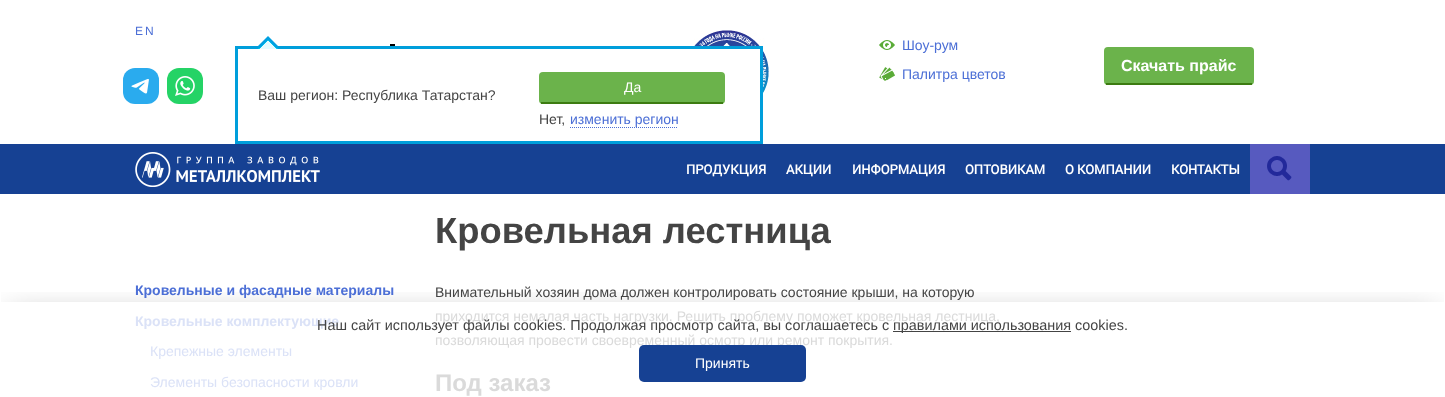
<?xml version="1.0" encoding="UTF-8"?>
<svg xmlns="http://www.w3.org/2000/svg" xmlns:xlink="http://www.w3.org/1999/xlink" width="1445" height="397">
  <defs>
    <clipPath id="clip1"><rect x="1" y="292" width="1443" height="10" /></clipPath>
  </defs>
  <rect width="100%" height="100%" fill="#ffffff" />
  <image x="685" y="30" width="84" height="84" xlink:href="image1.png" />
  <image x="879" y="40" width="16" height="10" xlink:href="image2.png" />
  <image x="879" y="67" width="16" height="14" xlink:href="image3.png" />
  <rect x="1104" y="47" width="150" height="38" rx="4" fill="#6bb34b" />
  <rect x="1106" y="83" width="146" height="2" fill="#3c7b11" />
  <rect x="123" y="68" width="36" height="36" rx="12" fill="#2aabee" />
  <image x="131" y="79" width="18" height="15" xlink:href="image4.png" />
  <rect x="167" y="68" width="36" height="36" rx="12" fill="#25d366" />
  <image x="175" y="76" width="20" height="20" xlink:href="image5.png" />
  <rect x="390" y="44" width="5" height="2" fill="#000000" />
  <rect x="685" y="49" width="75" height="65" fill="#ffffff" />
  <rect x="236.5" y="47.5" width="525" height="95" fill="none" stroke="#009edb" stroke-width="3" />
  <image x="258" y="36" width="20" height="13" xlink:href="image6.png" />
  <rect x="539" y="72" width="186" height="32" rx="4" fill="#6bb34b" />
  <rect x="541" y="102" width="182" height="2" fill="#3c7b11" />
  <path d="M 570 127.5 h 108" fill="none" stroke="#4c6fd6" stroke-dasharray="1 1" />
  <rect y="144" width="1445" height="50" fill="#164193" />
  <image x="135" y="152" width="185" height="35" xlink:href="image7.png" />
  <rect x="1250" y="144" width="60" height="50" fill="#575abf" />
  <image x="1267" y="156" width="25" height="25" xlink:href="image8.png" />
  <g clip-path="url(#clip1)">
    <rect x="8" y="318" width="1429" height="79" fill="#000000" fill-opacity="0.4" filter="blur(16px)" />
  </g>
  <rect x="893" y="331" width="178" height="1" fill="#444444" />
  <text x="135" y="35" style="font-family: Liberation Sans; font-size: 12px; letter-spacing: 2px; fill: #4c6fd6">EN</text>
  <text x="902" y="50" style="font-family: Liberation Sans; font-size: 14px; fill: #4c6fd6">Шоу-рум</text>
  <text x="902" y="79" style="font-family: Liberation Sans; font-size: 14px; fill: #4c6fd6">Палитра цветов</text>
  <text x="1121" y="71" style="font-family: Liberation Sans; font-size: 16px; font-weight: bold; fill: #ffffff">Скачать прайс</text>
  <text x="258" y="100" style="font-family: Liberation Sans; font-size: 14px; fill: #444444">Ваш регион: Республика Татарстан?</text>
  <text x="624" y="92" style="font-family: Liberation Sans; font-size: 14px; fill: #ffffff">Да</text>
  <text x="539" y="124" style="font-family: Liberation Sans; font-size: 14px; fill: #444444">Нет,</text>
  <text x="570" y="124" style="font-family: Liberation Sans; font-size: 14px; fill: #4c6fd6">изменить регион</text>
  <text x="686" y="174" style="font-family: Roboto; font-size: 13px; font-weight: bold; fill: #ffffff">ПРОДУКЦИЯ</text>
  <text x="786" y="174" style="font-family: Roboto; font-size: 13px; font-weight: bold; fill: #ffffff">АКЦИИ</text>
  <text x="852" y="174" style="font-family: Roboto; font-size: 13px; font-weight: bold; fill: #ffffff">ИНФОРМАЦИЯ</text>
  <text x="965" y="174" style="font-family: Roboto; font-size: 13px; font-weight: bold; fill: #ffffff">ОПТОВИКАМ</text>
  <text x="1065" y="174" style="font-family: Roboto; font-size: 13px; font-weight: bold; fill: #ffffff">О КОМПАНИИ</text>
  <text x="1171" y="174" style="font-family: Roboto; font-size: 13px; font-weight: bold; fill: #ffffff">КОНТАКТЫ</text>
  <text x="435" y="243" style="font-family: Liberation Sans; font-size: 36.4px; font-weight: bold; fill: #444444">Кровельная лестница</text>
  <text x="135" y="295" style="font-family: Liberation Sans; font-size: 14px; font-weight: bold; fill: #4c6fd6">Кровельные и фасадные материалы</text>
  <text x="135" y="326" style="font-family: Liberation Sans; font-size: 14px; font-weight: bold; fill: #dbe2f7">Кровельные комплектующие</text>
  <text x="150" y="356" style="font-family: Liberation Sans; font-size: 14px; fill: #dbe2f7">Крепежные элементы</text>
  <text x="150" y="387" style="font-family: Liberation Sans; font-size: 14px; fill: #dbe2f7">Элементы безопасности кровли</text>
  <text x="435" y="297" style="font-family: Liberation Sans; font-size: 14px; fill: #444444">Внимательный хозяин дома должен контролировать состояние крыши, на которую</text>
  <text x="435" y="321" style="font-family: Liberation Sans; font-size: 14px; fill: #dadada">приходится немалая часть нагрузки. Решить проблему поможет кровельная лестница,</text>
  <text x="435" y="345" style="font-family: Liberation Sans; font-size: 14px; fill: #dadada">позволяющая провести своевременный осмотр или ремонт покрытия.</text>
  <text x="435" y="391" style="font-family: Liberation Sans; font-size: 24px; font-weight: bold; fill: #dadada">Под заказ</text>
  <text x="317" y="330" style="font-family: Liberation Sans; font-size: 14.4px; fill: #444444">Наш сайт использует файлы cookies. Продолжая просмотр сайта, вы соглашаетесь с</text>
  <text x="893" y="330" style="font-family: Liberation Sans; font-size: 14.4px; fill: #444444">правилами использования cookies.</text>
  <rect x="639" y="345" width="167" height="37" rx="5" fill="#164193" />
  <text x="695" y="368" style="font-family: Liberation Sans; font-size: 14px; fill: #ffffff">Принять</text>
</svg>
